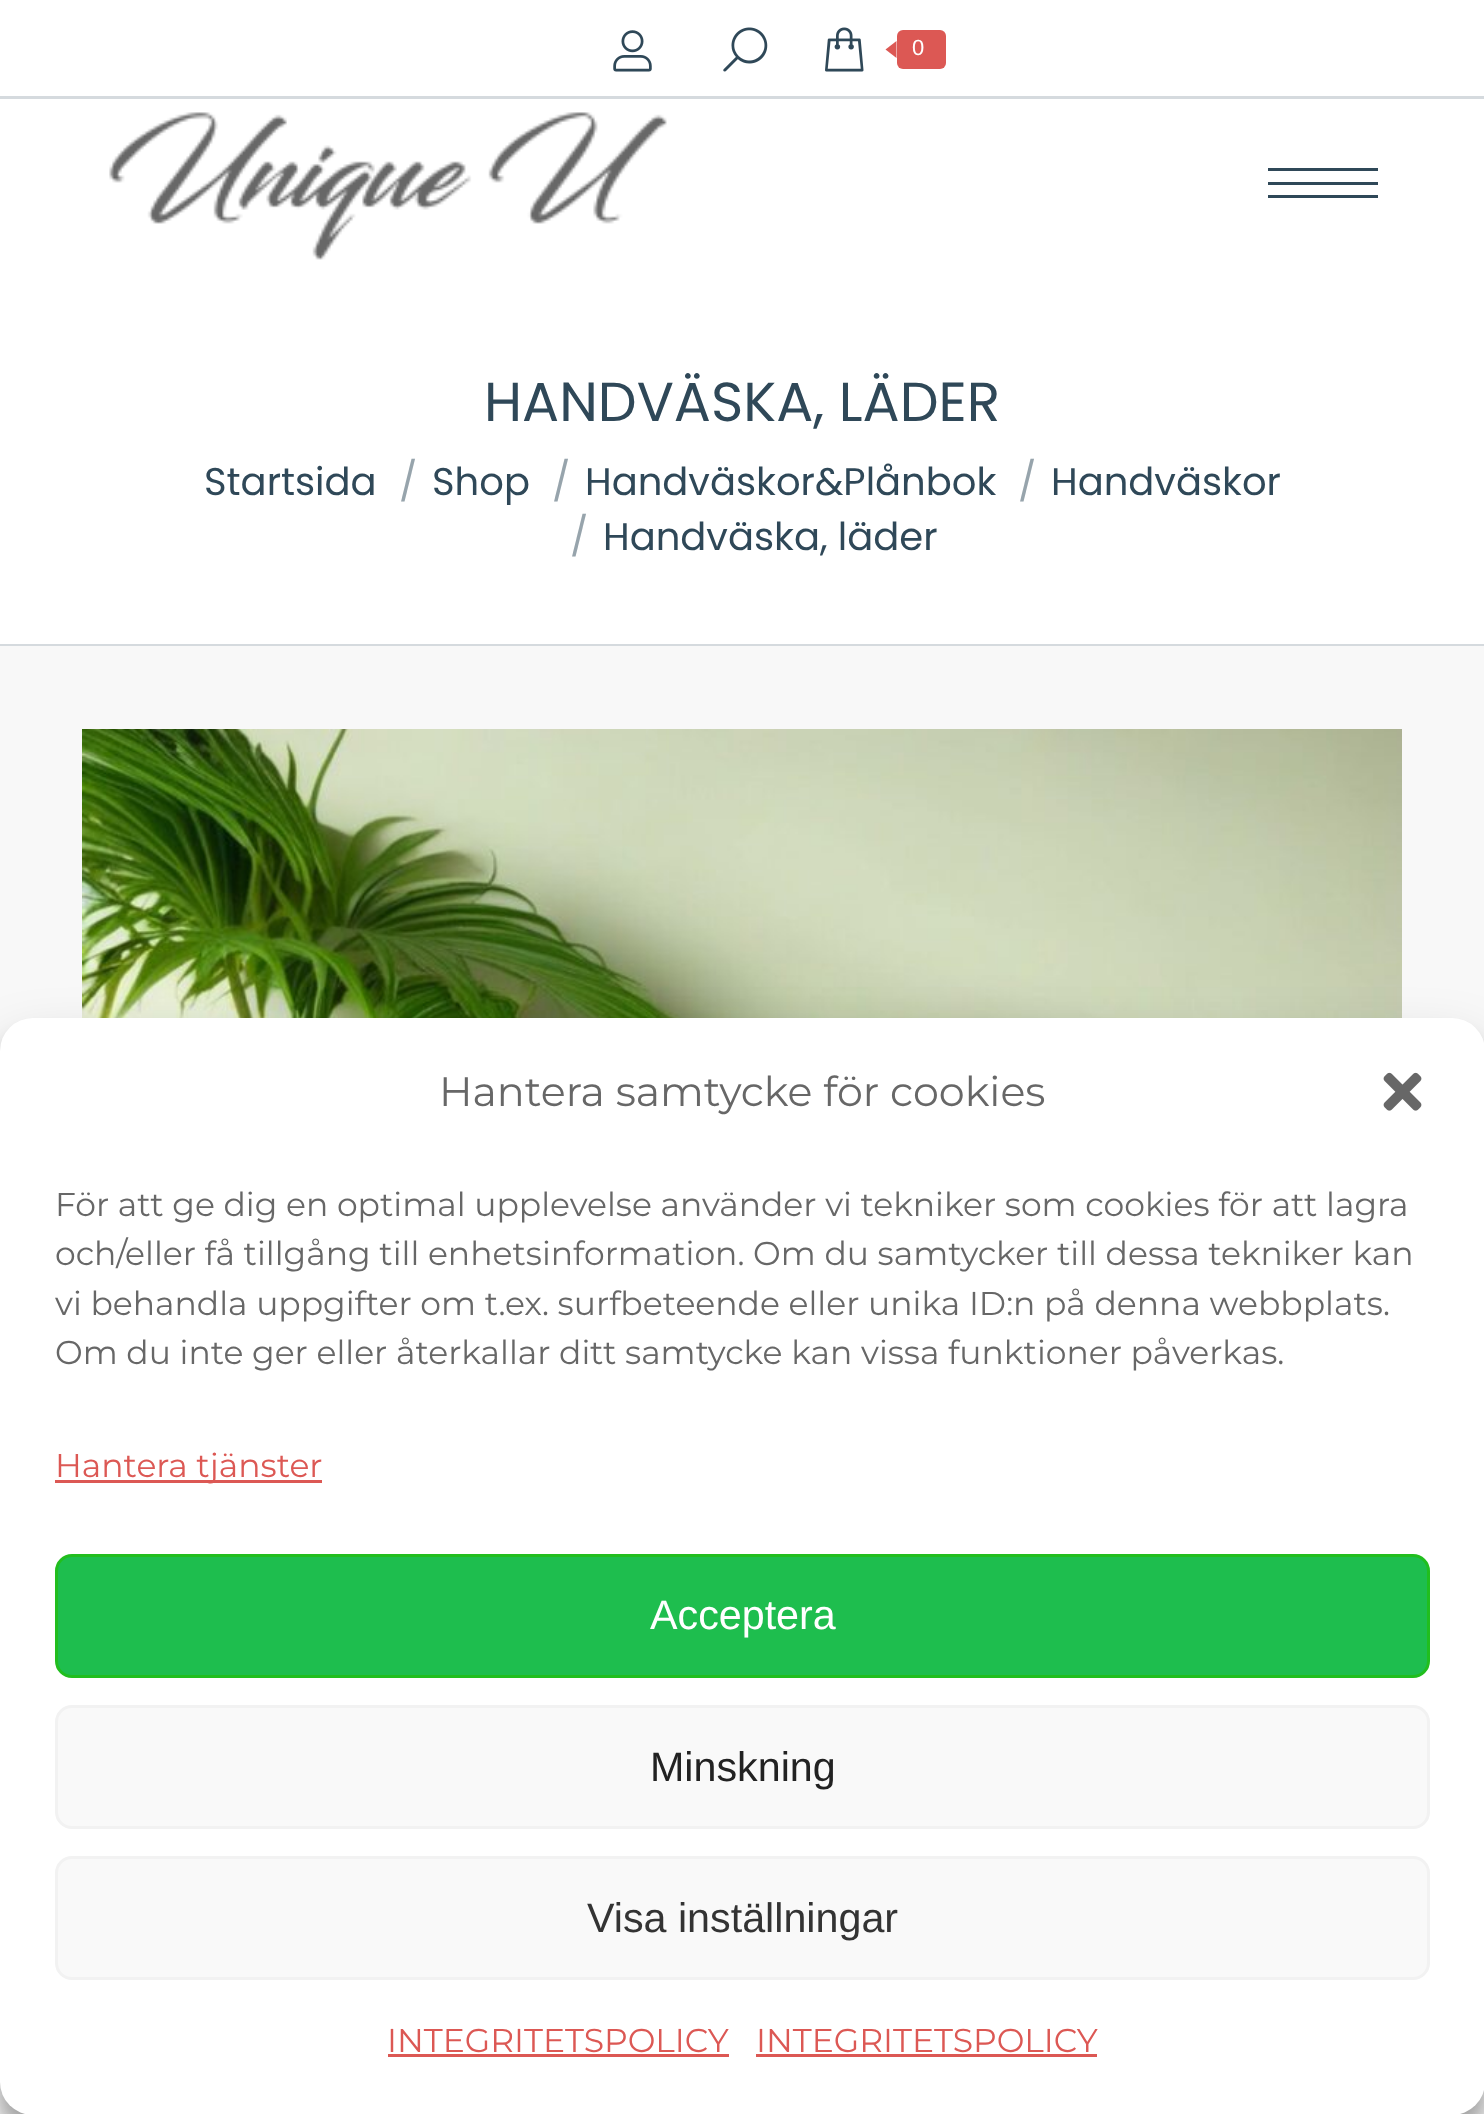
<?xml version="1.0" encoding="UTF-8"?>
<svg xmlns="http://www.w3.org/2000/svg" xmlns:xlink="http://www.w3.org/1999/xlink" width="1484" height="2114">
  <rect width="100%" height="100%" fill="#ffffff" />
  <image x="613" y="30" width="39" height="42" xlink:href="image1.png" />
  <image x="723" y="27" width="45" height="45" xlink:href="image2.png" />
  <image x="825" y="27" width="39" height="45" xlink:href="image3.png" />
  <rect x="897" y="30" width="49" height="39" rx="6" fill="#dc5854" />
  <path d="M 896.5 41 v 17 l -11 -8.5 z" fill="#dc5854" />
  <rect y="96" width="1484" height="3" fill="#d5dade" />
  <image x="109" y="112" width="558" height="148" xlink:href="image4.png" />
  <rect x="1268" y="168" width="110" height="3" fill="#2f4858" />
  <rect x="1268" y="182" width="110" height="3" fill="#2f4858" />
  <rect x="1268" y="195" width="110" height="3" fill="#2f4858" />
  <rect y="644" width="1484" height="2" fill="#d5dade" />
  <rect y="646" width="1484" height="1468" fill="#f8f8f8" />
  <image x="82" y="729" width="1320" height="289" xlink:href="image5.png" />
  <rect y="1034" width="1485" height="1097" rx="33" fill="#000000" fill-opacity="0.23" filter="blur(8px)" />
  <rect y="1045" width="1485" height="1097" rx="33" fill="#000000" fill-opacity="0.19" filter="blur(27.5px)" />
  <rect y="1018" width="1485" height="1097" rx="33" fill="#ffffff" />
  <image x="1383" y="1072" width="39" height="39" xlink:href="image6.png" />
  <rect x="55" y="1480" width="267" height="3" fill="#dc5854" />
  <rect x="56.5" y="1555.5" width="1372" height="121" rx="15.5" fill="#1ebe4e" stroke="#21be1e" stroke-width="3" />
  <rect x="56.5" y="1706.5" width="1372" height="121" rx="15.5" fill="#f9f9f9" stroke="#f2f2f2" stroke-width="3" />
  <rect x="56.5" y="1857.5" width="1372" height="121" rx="15.5" fill="#f9f9f9" stroke="#f2f2f2" stroke-width="3" />
  <rect x="388" y="2054" width="341" height="3" fill="#dc5854" />
  <rect x="756" y="2054" width="341" height="3" fill="#dc5854" />
  <text x="912" y="55" style="font-family: Liberation Sans; font-size: 22px; fill: #ffffff">0</text>
  <text x="484" y="421" style="font-family: Poppins; font-size: 55px; fill: #2f4858">HANDVÄSKA, LÄDER</text>
  <text x="204" y="495" style="font-family: Poppins; font-size: 38.5px; fill: #2f4858">Startsida</text>
  <text x="399" y="495" style="font-family: Poppins; font-size: 38.5px; fill: #97a4ac">/</text>
  <text x="432" y="495" style="font-family: Poppins; font-size: 38.5px; fill: #2f4858">Shop</text>
  <text x="552" y="495" style="font-family: Poppins; font-size: 38.5px; fill: #97a4ac">/</text>
  <text x="585" y="495" style="font-family: Poppins; font-size: 38.5px; fill: #2f4858">Handväskor&amp;Plånbok</text>
  <text x="1018" y="495" style="font-family: Poppins; font-size: 38.5px; fill: #97a4ac">/</text>
  <text x="1051" y="495" style="font-family: Poppins; font-size: 38.5px; fill: #2f4858">Handväskor</text>
  <text x="570" y="550" style="font-family: Poppins; font-size: 38.5px; fill: #97a4ac">/</text>
  <text x="603" y="550" style="font-family: Poppins; font-size: 38.5px; fill: #2f4858">Handväska, läder</text>
  <text x="439" y="1106" style="font-family: Montserrat; font-size: 41.25px; fill: #676767">Hantera samtycke för cookies</text>
  <text x="55" y="1216" style="font-family: Montserrat; font-size: 33px; fill: #676767">För att ge dig en optimal upplevelse använder vi tekniker som cookies för att lagra</text>
  <text x="55" y="1265" style="font-family: Montserrat; font-size: 33px; fill: #676767">och/eller få tillgång till enhetsinformation. Om du samtycker till dessa tekniker kan</text>
  <text x="55" y="1315" style="font-family: Montserrat; font-size: 33px; fill: #676767">vi behandla uppgifter om t.ex. surfbeteende eller unika ID:n på denna webbplats.</text>
  <text x="55" y="1364" style="font-family: Montserrat; font-size: 33px; fill: #676767">Om du inte ger eller återkallar ditt samtycke kan vissa funktioner påverkas.</text>
  <text x="55" y="1477" style="font-family: Montserrat; font-size: 33px; fill: #dc5854">Hantera tjänster</text>
  <text x="650" y="1629" style="font-family: Liberation Sans; font-size: 41.25px; fill: #ffffff">Acceptera</text>
  <text x="650" y="1781" style="font-family: Liberation Sans; font-size: 41.25px; fill: #222222">Minskning</text>
  <text x="587" y="1932" style="font-family: Liberation Sans; font-size: 41.25px; fill: #333333">Visa inställningar</text>
  <text x="387" y="2052" style="font-family: Montserrat; font-size: 33px; fill: #dc5854">INTEGRITETSPOLICY</text>
  <text x="756" y="2052" style="font-family: Montserrat; font-size: 33px; fill: #dc5854">INTEGRITETSPOLICY</text>
</svg>
